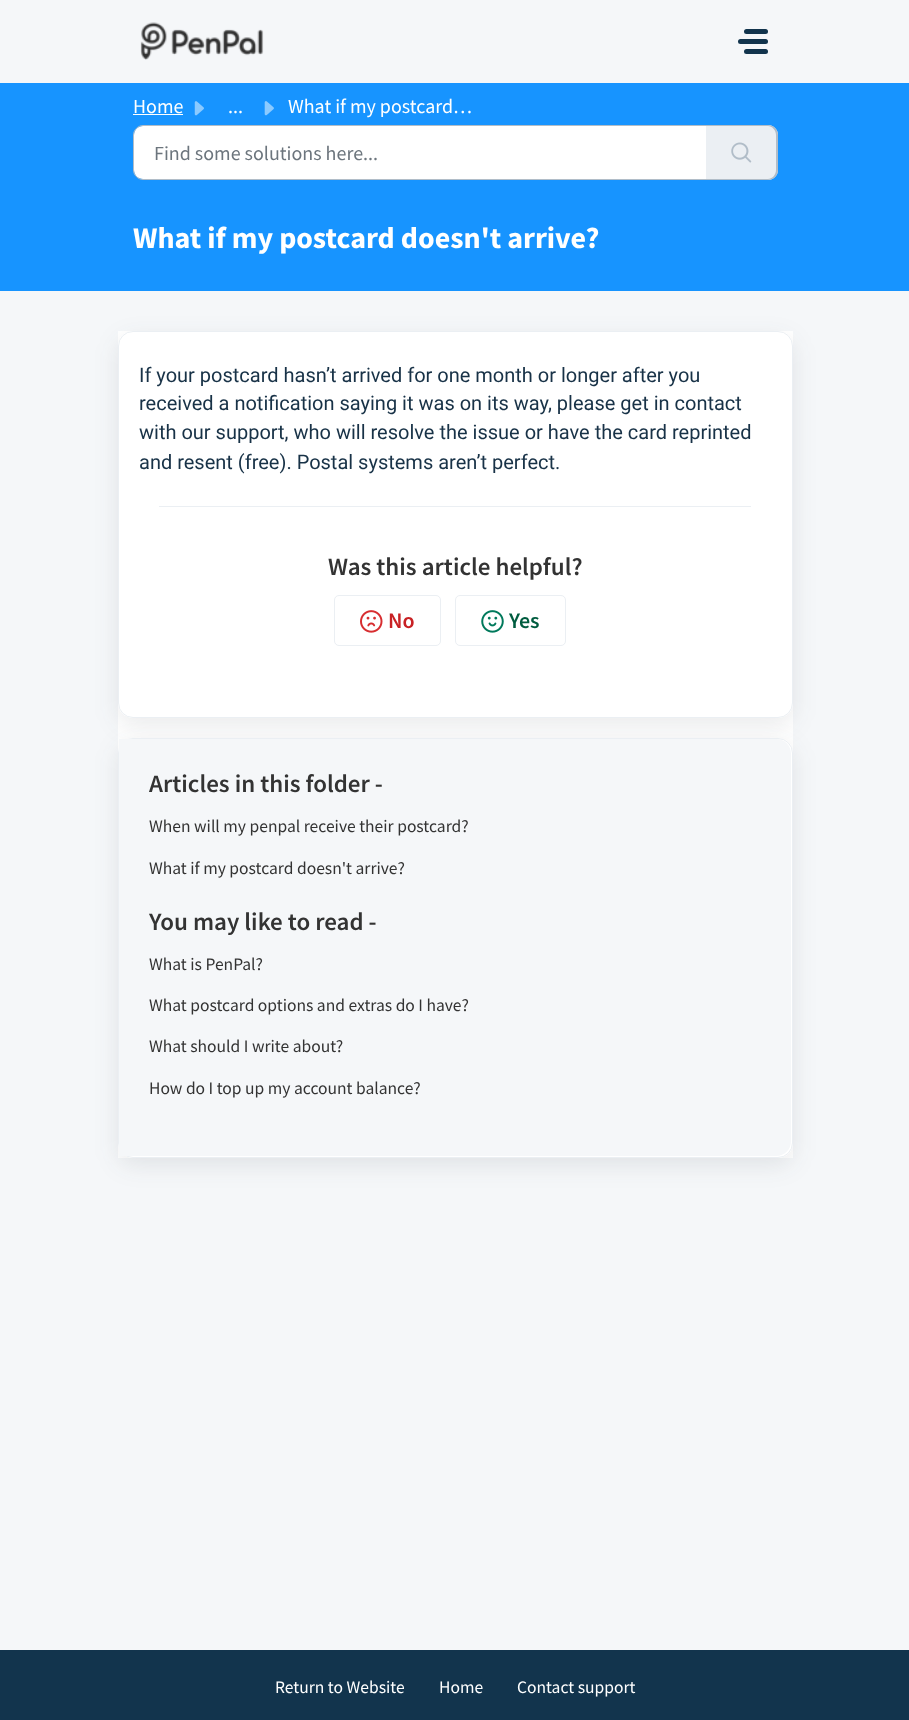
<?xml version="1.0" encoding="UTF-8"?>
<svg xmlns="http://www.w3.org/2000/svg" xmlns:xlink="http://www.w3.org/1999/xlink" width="909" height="1720">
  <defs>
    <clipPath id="clip1"><path d="M 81 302 h 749 v 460 h -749 z m 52 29 h 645 c 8.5 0 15 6.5 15 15 v 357 c 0 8.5 -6.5 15 -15 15 h -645 c -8.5 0 -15 -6.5 -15 -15 v -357 c 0 -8.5 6.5 -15 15 -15 z" clip-rule="evenodd" /></clipPath>
    <clipPath id="clip2"><path d="M 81 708 h 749 v 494 h -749 z m 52 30 h 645 c 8.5 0 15 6.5 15 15 v 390 c 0 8.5 -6.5 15 -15 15 h -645 c -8.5 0 -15 -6.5 -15 -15 v -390 c 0 -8.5 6.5 -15 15 -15 z" clip-rule="evenodd" /></clipPath>
  </defs>
  <rect width="100%" height="100%" fill="#f5f7f9" />
  <image x="140" y="22" width="124" height="38" xlink:href="image1.png" />
  <rect x="744" y="29" width="24" height="5" rx="2.5" fill="#12344d" />
  <rect x="738" y="39" width="30" height="5" rx="2.5" fill="#12344d" />
  <rect x="744" y="49" width="24" height="5" rx="2.5" fill="#12344d" />
  <rect y="83" width="909" height="208" fill="#1794ff" />
  <rect x="133" y="114" width="50" height="1" fill="#ffffff" />
  <image x="194" y="101" width="10" height="15" xlink:href="image2.png" />
  <image x="264" y="101" width="10" height="15" xlink:href="image3.png" />
  <path d="M 143 126 h 563 v 53 h -563 c -5 0 -9 -4 -9 -9 v -35 c 0 -5 4 -9 9 -9 z" fill="#ffffff" />
  <path d="M 143 125.5 h 564.5 v 54 h -564.5 c -5 0 -9.5 -4.5 -9.5 -9.5 v -35 c 0 -5 4.5 -9.5 9.5 -9.5 z" fill="none" stroke="#b1bdc8" />
  <path d="M 706 125 h 62 c 5.5 0 10 4.5 10 10 v 35 c 0 5.5 -4.5 10 -10 10 h -62 z" fill="#ebeff3" />
  <path d="M 706 125 h 62 c 5 0 10 4 10 10 v 35 c 0 6 -5 10 -10 10 h -62 z m 0 1 h 62 c 4 0 8 4 8 9 v 35 c 0 5 -4 9 -8 9 h -62 z" fill="#b1bdc8" fill-rule="evenodd" />
  <image x="731" y="142" width="21" height="21" xlink:href="image4.png" />
  <rect x="118" y="331" width="675" height="827" fill="#ffffff" />
  <g clip-path="url(#clip1)">
    <rect x="118" y="339" width="675" height="386" rx="15" fill="#27313a" fill-opacity="0.1" filter="blur(12px)" />
  </g>
  <rect x="118.5" y="331.5" width="674" height="386" rx="14.5" fill="none" stroke="#ebeff3" />
  <rect x="159" y="506" width="592" height="1" fill="#ebeff3" />
  <rect x="334.5" y="595.5" width="106" height="50" rx="4.5" fill="none" stroke="#ebeff3" />
  <image x="360" y="610" width="23" height="23" xlink:href="image5.png" />
  <rect x="455.5" y="595.5" width="110" height="50" rx="4.5" fill="none" stroke="#ebeff3" />
  <image x="481" y="610" width="23" height="23" xlink:href="image6.png" />
  <g clip-path="url(#clip2)">
    <rect x="118" y="745" width="675" height="420" rx="15" fill="#27313a" fill-opacity="0.1" filter="blur(12px)" />
  </g>
  <rect x="118.5" y="738.5" width="674" height="419" rx="14.5" fill="none" stroke="#ebeff3" />
  <path d="M 119 739 h 657 c 8.5 0 15 6.5 15 15 v 387 c 0 8.5 -6.5 15 -15 15 h -657 z" fill="#f5f7f9" />
  <rect y="1650" width="909" height="70" fill="#12344d" />
  <text x="133" y="113" style="font-family: Source Sans Pro; font-size: 20px; fill: #ffffff">Home</text>
  <text x="228" y="113" style="font-family: Source Sans Pro; font-size: 20px; fill: #ffffff">...</text>
  <text x="288" y="113" style="font-family: Source Sans Pro; font-size: 20px; fill: #ffffff">What if my postcard…</text>
  <text x="154" y="160" style="font-family: Source Sans Pro; font-size: 20px; fill: #6c757d">Find some solutions here...</text>
  <text x="133" y="248" style="font-family: Source Sans Pro; font-size: 30px; font-weight: bold; fill: #ffffff">What if my postcard doesn't arrive?</text>
  <text x="139" y="382" style="font-family: Roboto; font-size: 20px; fill: #183247">If your postcard hasn’t arrived for one month or longer after you</text>
  <text x="139" y="410" style="font-family: Roboto; font-size: 20px; fill: #183247">received a notification saying it was on its way, please get in contact</text>
  <text x="139" y="439" style="font-family: Roboto; font-size: 20px; fill: #183247">with our support, who will resolve the issue or have the card reprinted</text>
  <text x="139" y="469" style="font-family: Roboto; font-size: 20px; fill: #183247">and resent (free). Postal systems aren’t perfect.</text>
  <text x="328" y="575" style="font-family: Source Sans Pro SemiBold; font-size: 25px; font-weight: 600; fill: #333333">Was this article helpful?</text>
  <text x="388" y="628" style="font-family: Source Sans Pro SemiBold; font-size: 22px; font-weight: 600; fill: #c82124">No</text>
  <text x="509" y="628" style="font-family: Source Sans Pro SemiBold; font-size: 22px; font-weight: 600; fill: #005c3f">Yes</text>
  <text x="149" y="792" style="font-family: Source Sans Pro SemiBold; font-size: 25px; font-weight: 600; fill: #333333">Articles in this folder -</text>
  <text x="149" y="832" style="font-family: Source Sans Pro; font-size: 17.5px; fill: #333333">When will my penpal receive their postcard?</text>
  <text x="149" y="874" style="font-family: Source Sans Pro; font-size: 17.5px; fill: #333333">What if my postcard doesn't arrive?</text>
  <text x="149" y="930" style="font-family: Source Sans Pro SemiBold; font-size: 25px; font-weight: 600; fill: #333333">You may like to read -</text>
  <text x="149" y="970" style="font-family: Source Sans Pro; font-size: 17.5px; fill: #333333">What is PenPal?</text>
  <text x="149" y="1011" style="font-family: Source Sans Pro; font-size: 17.5px; fill: #333333">What postcard options and extras do I have?</text>
  <text x="149" y="1052" style="font-family: Source Sans Pro; font-size: 17.5px; fill: #333333">What should I write about?</text>
  <text x="149" y="1094" style="font-family: Source Sans Pro; font-size: 17.5px; fill: #333333">How do I top up my account balance?</text>
  <text x="275" y="1693" style="font-family: Source Sans Pro; font-size: 17.5px; fill: #ffffff">Return to Website</text>
  <text x="439" y="1693" style="font-family: Source Sans Pro; font-size: 17.5px; fill: #ffffff">Home</text>
  <text x="517" y="1693" style="font-family: Source Sans Pro; font-size: 17.5px; fill: #ffffff">Contact support</text>
</svg>
